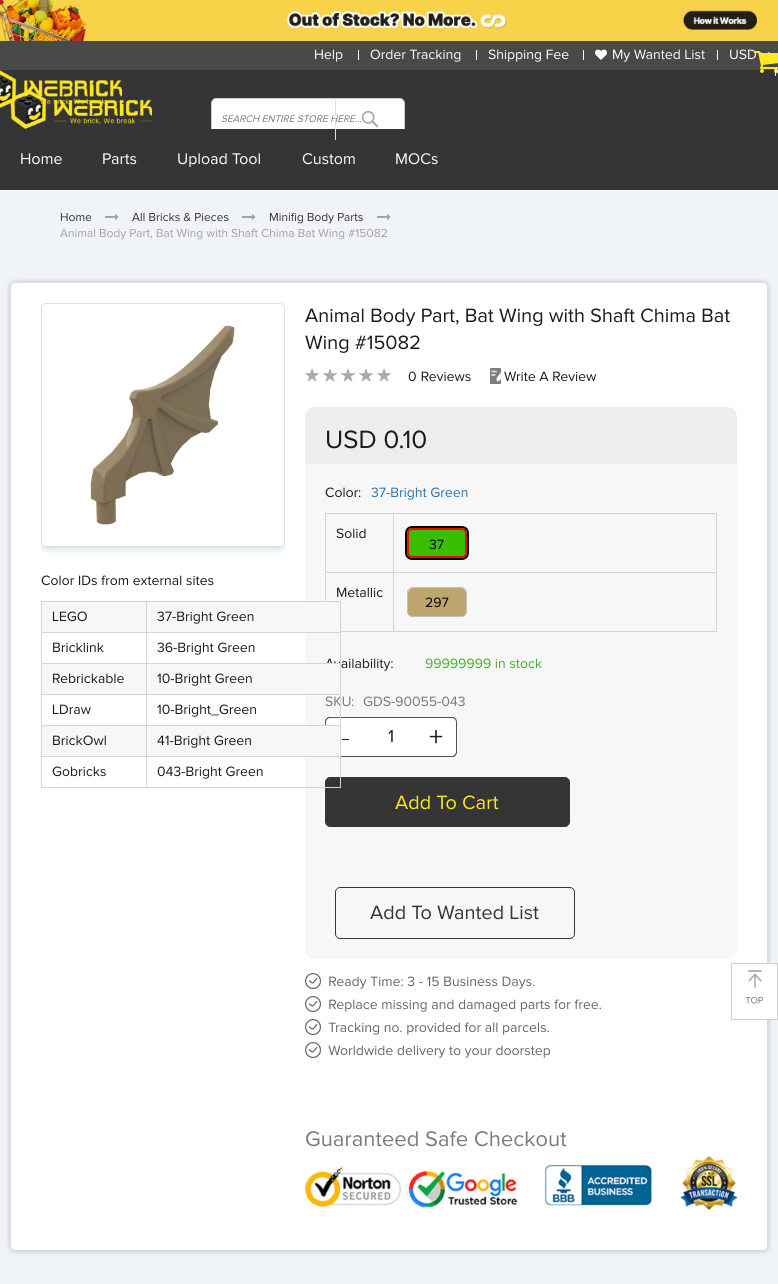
<?xml version="1.0" encoding="UTF-8"?>
<svg xmlns="http://www.w3.org/2000/svg" xmlns:xlink="http://www.w3.org/1999/xlink" width="778" height="1284">
  <defs>
    <clipPath id="clip1"><rect x="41" y="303" width="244" height="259" /></clipPath>
    <clipPath id="clip2"><path d="M 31 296 h 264 v 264 h -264 z m 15 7 h 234 c 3 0 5 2 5 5 v 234 c 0 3 -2 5 -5 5 h -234 c -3 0 -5 -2 -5 -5 v -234 c 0 -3 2 -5 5 -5 z" clip-rule="evenodd" /></clipPath>
    <clipPath id="clip3"><rect x="408" y="588" width="58" height="28" rx="4" /></clipPath>
  </defs>
  <rect width="100%" height="100%" fill="#f0f3f7" />
  <image x="0" y="0" width="778" height="41" xlink:href="image1.png" />
  <rect y="70" width="778" height="120" fill="#353535" />
  <rect y="41" width="778" height="29" fill="#494949" />
  <image x="315" y="49" width="28" height="13" xlink:href="image2.png" />
  <rect x="358" y="50" width="1" height="10" fill="#ffffff" />
  <image x="370" y="49" width="91" height="13" xlink:href="image3.png" />
  <rect x="476" y="50" width="1" height="10" fill="#ffffff" />
  <image x="488" y="49" width="81" height="13" xlink:href="image4.png" />
  <rect x="583" y="50" width="1" height="10" fill="#ffffff" />
  <image x="595" y="49" width="12" height="11" xlink:href="image5.png" />
  <image x="613" y="49" width="92" height="13" xlink:href="image6.png" />
  <rect x="717" y="50" width="1" height="10" fill="#ffffff" />
  <image x="730" y="49" width="27" height="11" xlink:href="image7.png" />
  <image x="760" y="52" width="10" height="1" xlink:href="image8.png" />
  <image x="754" y="51" width="24" height="22" xlink:href="image9.png" />
  <image x="774" y="68" width="4" height="8" xlink:href="image10.png" />
  <image x="10" y="90" width="142" height="39" xlink:href="image12.png" />
  <image x="0" y="70" width="122" height="38" xlink:href="image11.png" />
  <rect x="211.5" y="98.5" width="193" height="41" rx="4.5" fill="#ffffff" stroke="#cccccc" />
  <image x="221" y="115" width="141" height="8" xlink:href="image13.png" />
  <rect x="211" y="129" width="194" height="11" fill="#353535" />
  <rect x="335" y="98" width="1" height="42" fill="#e0e0e0" />
  <image x="361" y="110" width="18" height="18" xlink:href="image14.png" />
  <image x="21" y="153" width="41" height="12" xlink:href="image15.png" />
  <image x="103" y="153" width="34" height="12" xlink:href="image16.png" />
  <image x="178" y="153" width="82" height="14" xlink:href="image17.png" />
  <image x="302" y="153" width="53" height="12" xlink:href="image18.png" />
  <image x="396" y="153" width="42" height="12" xlink:href="image19.png" />
  <image x="60" y="213" width="32" height="9" xlink:href="image20.png" />
  <image x="105" y="214" width="14" height="6" xlink:href="image21.png" />
  <image x="132" y="212" width="97" height="10" xlink:href="image22.png" />
  <image x="242" y="214" width="14" height="6" xlink:href="image21.png" />
  <image x="269" y="212" width="94" height="12" xlink:href="image23.png" />
  <image x="377" y="214" width="14" height="6" xlink:href="image21.png" />
  <image x="60" y="228" width="327" height="12" xlink:href="image24.png" />
  <rect x="10" y="282" width="758" height="969" rx="5" fill="#bdbdbd" filter="blur(2.5px)" />
  <rect x="10.5" y="282.5" width="757" height="968" rx="4.5" fill="#ffffff" stroke="#dcdcdc" />
  <g clip-path="url(#clip1)">
    <g clip-path="url(#clip2)">
      <rect x="41" y="306" width="244" height="244" rx="5" fill="#18739c" fill-opacity="0.18" filter="blur(3px)" />
    </g>
  </g>
  <rect x="41.5" y="303.5" width="243" height="243" rx="4.5" fill="none" stroke="#dcdcdc" />
  <image x="90" y="325" width="145" height="200" xlink:href="image25.png" />
  <image x="41" y="575" width="173" height="11" xlink:href="image26.png" />
  <rect x="42" y="602" width="263" height="30" fill="#f7f7f7" />
  <path d="M 305 464 h 432 v 485 c 0 5.5 -4.5 10 -10 10 h -412 c -5.5 0 -10 -4.5 -10 -10 z" fill="#f7f7f7" />
  <rect x="146" y="601" width="195" height="1" fill="#d4d4d4" />
  <rect x="146" y="632" width="195" height="1" fill="#d4d4d4" />
  <image x="327" y="658" width="66" height="13" xlink:href="image54.png" />
  <rect x="146" y="663" width="195" height="1" fill="#d4d4d4" />
  <rect x="42" y="664" width="298" height="30" fill="#f7f7f7" />
  <rect x="146" y="694" width="195" height="1" fill="#d4d4d4" />
  <rect x="325" y="717" width="39" height="39" fill="#ffffff" />
  <rect x="364" y="718" width="53" height="38" fill="#ffffff" />
  <rect x="364" y="717" width="54" height="1" fill="#535353" />
  <rect x="364" y="756" width="54" height="1" fill="#535353" />
  <path d="M 330 717 h 35 v 40 h -35 c -3 0 -5 -2 -5 -5 v -30 c 0 -3 2 -5 5 -5 z m 0 1 h 35 v 38 h -35 c -2 0 -4 -2 -4 -4 v -30 c 0 -2 2 -4 4 -4 z" fill="#535353" fill-rule="evenodd" />
  <rect x="146" y="725" width="195" height="1" fill="#d4d4d4" />
  <rect x="42" y="726" width="298" height="30" fill="#f7f7f7" />
  <rect x="146" y="756" width="195" height="1" fill="#d4d4d4" />
  <rect x="325.5" y="777.5" width="244" height="49" rx="4.5" fill="#353535" stroke="#353535" />
  <rect x="340" y="756" width="1" height="32" fill="#d4d4d4" />
  <rect x="146" y="787" width="195" height="1" fill="#d4d4d4" />
  <rect x="146" y="756" width="1" height="32" fill="#d4d4d4" />
  <rect x="41" y="756" width="106" height="1" fill="#d4d4d4" />
  <rect x="146" y="725" width="1" height="32" fill="#d4d4d4" />
  <rect x="41" y="725" width="106" height="1" fill="#d4d4d4" />
  <rect x="146" y="694" width="1" height="32" fill="#d4d4d4" />
  <rect x="41" y="694" width="106" height="1" fill="#d4d4d4" />
  <rect x="146" y="663" width="1" height="32" fill="#d4d4d4" />
  <rect x="41" y="663" width="106" height="1" fill="#d4d4d4" />
  <rect x="146" y="632" width="1" height="32" fill="#d4d4d4" />
  <rect x="41" y="632" width="106" height="1" fill="#d4d4d4" />
  <rect x="146" y="601" width="1" height="32" fill="#d4d4d4" />
  <rect x="41" y="601" width="106" height="1" fill="#d4d4d4" />
  <rect x="41" y="787" width="106" height="1" fill="#d4d4d4" />
  <rect x="41" y="756" width="1" height="32" fill="#d4d4d4" />
  <rect x="41" y="725" width="1" height="32" fill="#d4d4d4" />
  <rect x="41" y="694" width="1" height="32" fill="#d4d4d4" />
  <rect x="41" y="663" width="1" height="32" fill="#d4d4d4" />
  <rect x="41" y="632" width="1" height="32" fill="#d4d4d4" />
  <rect x="41" y="601" width="1" height="32" fill="#d4d4d4" />
  <image x="52" y="611" width="35" height="11" xlink:href="image27.png" />
  <rect x="340" y="725" width="1" height="32" fill="#d4d4d4" />
  <image x="325" y="696" width="26" height="11" xlink:href="image56.png" />
  <rect x="340" y="694" width="1" height="32" fill="#d4d4d4" />
  <rect x="340" y="663" width="1" height="32" fill="#d4d4d4" />
  <rect x="340" y="632" width="1" height="32" fill="#d4d4d4" />
  <rect x="340" y="601" width="1" height="32" fill="#d4d4d4" />
  <image x="157" y="611" width="97" height="13" xlink:href="image28.png" />
  <image x="53" y="642" width="51" height="11" xlink:href="image29.png" />
  <image x="157" y="642" width="98" height="13" xlink:href="image30.png" />
  <image x="53" y="673" width="71" height="11" xlink:href="image31.png" />
  <image x="157" y="673" width="95" height="13" xlink:href="image32.png" />
  <image x="52" y="704" width="39" height="11" xlink:href="image33.png" />
  <image x="157" y="704" width="99" height="13" xlink:href="image34.png" />
  <image x="53" y="735" width="53" height="11" xlink:href="image35.png" />
  <image x="157" y="735" width="94" height="13" xlink:href="image36.png" />
  <image x="52" y="766" width="54" height="11" xlink:href="image37.png" />
  <image x="157" y="766" width="106" height="13" xlink:href="image38.png" />
  <image x="305" y="308" width="425" height="18" xlink:href="image39.png" />
  <image x="305" y="335" width="115" height="18" xlink:href="image40.png" />
  <image x="305" y="368" width="86" height="14" xlink:href="image41.png" />
  <image x="408" y="371" width="8" height="11" xlink:href="image42.png" />
  <image x="421" y="371" width="50" height="11" xlink:href="image43.png" />
  <image x="490" y="368" width="11" height="16" xlink:href="image44.png" />
  <image x="504" y="371" width="93" height="11" xlink:href="image45.png" />
  <path d="M 315 407 h 412 c 5.5 0 10 4.5 10 10 v 47 h -432 v -47 c 0 -5.5 4.5 -10 10 -10 z" fill="#ededed" />
  <image x="327" y="430" width="99" height="19" xlink:href="image46.png" />
  <image x="325" y="487" width="33" height="11" xlink:href="image47.png" />
  <image x="358" y="490" width="3" height="8" xlink:href="image48.png" />
  <image x="371" y="487" width="97" height="13" xlink:href="image49.png" />
  <rect x="393" y="513" width="324" height="1" fill="#d4d4d4" />
  <rect x="393" y="572" width="324" height="1" fill="#d4d4d4" />
  <rect x="716" y="572" width="1" height="60" fill="#d4d4d4" />
  <rect x="393" y="631" width="324" height="1" fill="#d4d4d4" />
  <rect x="393" y="572" width="1" height="60" fill="#d4d4d4" />
  <rect x="325" y="572" width="69" height="1" fill="#d4d4d4" />
  <rect x="393" y="513" width="1" height="60" fill="#d4d4d4" />
  <rect x="325" y="513" width="69" height="1" fill="#d4d4d4" />
  <rect x="325" y="572" width="1" height="29" fill="#d4d4d4" />
  <rect x="325" y="513" width="1" height="60" fill="#d4d4d4" />
  <image x="336" y="528" width="30" height="11" xlink:href="image50.png" />
  <rect x="716" y="513" width="1" height="60" fill="#d4d4d4" />
  <rect x="408" y="529" width="58" height="28" rx="4" fill="#39bf00" stroke="#ff0000" stroke-width="2" />
  <image x="429" y="539" width="15" height="11" xlink:href="image51.png" />
  <rect x="406" y="527" width="62" height="32" rx="6" fill="none" stroke="#000000" stroke-width="2" />
  <rect x="341" y="631" width="53" height="1" fill="#d4d4d4" />
  <image x="337" y="587" width="46" height="11" xlink:href="image52.png" />
  <rect x="407.5" y="587.5" width="59" height="29" rx="4.5" fill="none" stroke="#bfbfbf" />
  <g clip-path="url(#clip3)">
    <rect x="408" y="588" width="58" height="30" rx="5" fill="#bda56d" />
  </g>
  <image x="425" y="597" width="24" height="11" xlink:href="image53.png" />
  <image x="425" y="658" width="117" height="11" xlink:href="image55.png" />
  <image x="351" y="699" width="3" height="8" xlink:href="image57.png" />
  <image x="363" y="696" width="102" height="11" xlink:href="image58.png" />
  <rect x="342" y="739" width="7" height="1" fill="#1b1b1b" />
  <image x="388" y="730" width="5" height="12" xlink:href="image59.png" />
  <rect x="417" y="717" width="40" height="40" fill="#ffffff" />
  <path d="M 417 717 h 35 c 3 0 5 2 5 5 v 30 c 0 3 -2 5 -5 5 h -35 z m 0 1 h 35 c 2 0 4 2 4 4 v 30 c 0 2 -2 4 -4 4 h -35 z" fill="#535353" fill-rule="evenodd" />
  <image x="429" y="730" width="14" height="14" xlink:href="image60.png" />
  <image x="395" y="795" width="104" height="15" xlink:href="image61.png" />
  <rect x="335.5" y="887.5" width="239" height="51" rx="4.5" fill="none" stroke="#353535" />
  <image x="370" y="905" width="169" height="15" xlink:href="image62.png" />
  <image x="305" y="973" width="16" height="16" xlink:href="image63.png" />
  <image x="329" y="976" width="206" height="13" xlink:href="image64.png" />
  <image x="305" y="996" width="16" height="16" xlink:href="image63.png" />
  <image x="329" y="999" width="272" height="13" xlink:href="image65.png" />
  <image x="305" y="1019" width="16" height="16" xlink:href="image63.png" />
  <image x="328" y="1022" width="221" height="13" xlink:href="image66.png" />
  <image x="305" y="1042" width="16" height="16" xlink:href="image63.png" />
  <image x="328" y="1045" width="223" height="13" xlink:href="image67.png" />
  <image x="306" y="1131" width="261" height="16" xlink:href="image68.png" />
  <image x="305" y="1156" width="432" height="55" xlink:href="image69.png" />
  <rect x="767" y="964" width="10" height="55" fill="#ffffff" />
  <rect x="731.5" y="963.5" width="46" height="56" fill="none" stroke="#cfcfcf" />
  <image x="748" y="970" width="14" height="18" xlink:href="image70.png" />
  <image x="745" y="996" width="19" height="8" xlink:href="image71.png" />
</svg>
